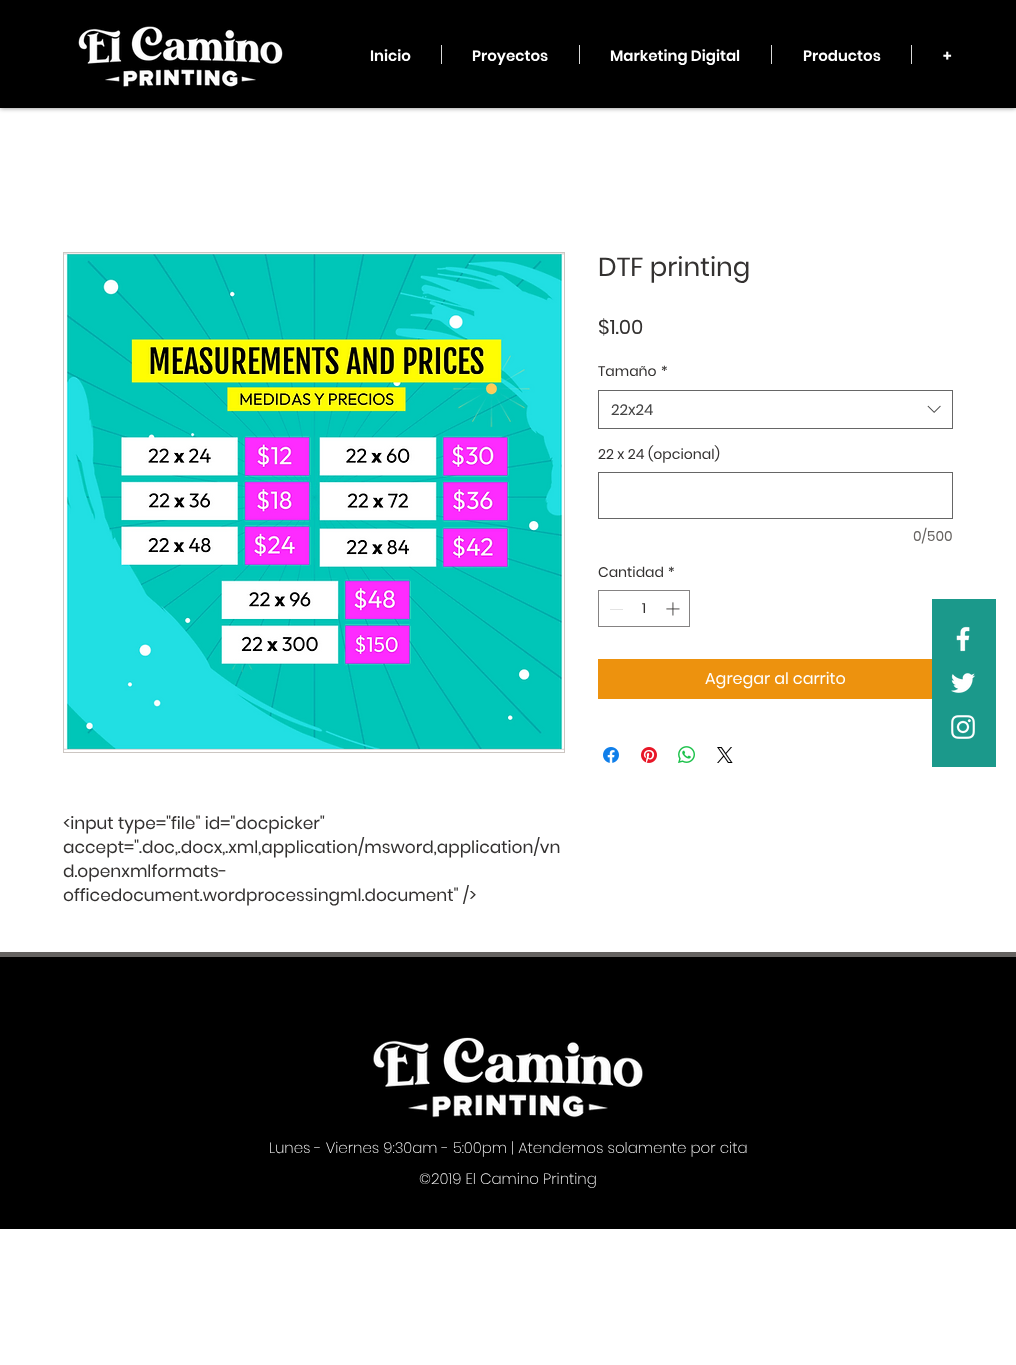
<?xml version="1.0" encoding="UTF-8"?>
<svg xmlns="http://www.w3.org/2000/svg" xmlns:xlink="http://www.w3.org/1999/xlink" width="1016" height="1365">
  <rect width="100%" height="100%" fill="#ffffff" />
  <rect width="1016" height="108" fill="#000000" fill-opacity="0.5" filter="blur(2.5px)" />
  <rect width="1016" height="108" fill="#000000" />
  <image x="78" y="26" width="205" height="61" xlink:href="image1.png" />
  <rect x="441" y="45" width="1" height="19" fill="#d9d9d9" />
  <rect x="579" y="45" width="1" height="19" fill="#d9d9d9" />
  <rect x="771" y="45" width="1" height="19" fill="#d9d9d9" />
  <rect x="911" y="45" width="1" height="19" fill="#d9d9d9" />
  <rect x="598.5" y="390.5" width="354" height="38" fill="none" stroke="#666666" />
  <image x="927" y="405" width="14" height="8" xlink:href="image2.png" />
  <rect x="598.5" y="472.5" width="354" height="46" fill="none" stroke="#666666" />
  <rect x="598.5" y="590.5" width="91" height="36" fill="none" stroke="#858383" />
  <rect x="610" y="609" width="13" height="1" fill="#e3e3e3" />
  <image x="666" y="602" width="14" height="14" xlink:href="image3.png" />
  <rect x="598" y="659" width="334" height="40" fill="#ed920e" />
  <image x="603" y="747" width="16" height="16" xlink:href="image4.png" />
  <image x="641" y="747" width="16" height="16" xlink:href="image5.png" />
  <image x="678" y="746" width="17" height="17" xlink:href="image6.png" />
  <image x="717" y="747" width="16" height="16" xlink:href="image7.png" />
  <rect x="63.5" y="252.5" width="501" height="500" fill="none" stroke="#ccc6c2" />
  <image x="64" y="253" width="500" height="497" xlink:href="image8.png" />
  <rect x="932" y="599" width="64" height="168" fill="#1b998b" />
  <image x="956" y="626" width="14" height="26" xlink:href="image9.png" />
  <image x="951" y="673" width="25" height="20" xlink:href="image10.png" />
  <image x="951" y="715" width="24" height="24" xlink:href="image11.png" />
  <rect y="957" width="1016" height="272" fill="#000000" />
  <rect y="952" width="1016" height="5" fill="#666361" />
  <image x="373" y="1037" width="270" height="81" xlink:href="image12.png" />
  <text x="370" y="61" style="font-family: Poppins; font-size: 15px; font-weight: 600; fill: #ffffff">Inicio</text>
  <text x="472" y="61" style="font-family: Poppins; font-size: 15px; font-weight: 600; fill: #ffffff">Proyectos</text>
  <text x="610" y="61" style="font-family: Poppins; font-size: 15px; font-weight: 600; fill: #ffffff">Marketing Digital</text>
  <text x="803" y="61" style="font-family: Poppins; font-size: 15px; font-weight: 600; fill: #ffffff">Productos</text>
  <text x="943" y="61" style="font-family: Poppins; font-size: 15px; font-weight: 600; fill: #ffffff">+</text>
  <text x="598" y="276" style="font-family: Poppins; font-size: 26px; fill: #333130">DTF printing</text>
  <text x="598" y="334" style="font-family: Poppins; font-size: 20px; fill: #333130">$1.00</text>
  <text x="598" y="376" style="font-family: Poppins; font-size: 14px; fill: #333130">Tamaño</text>
  <text x="661" y="376" style="font-family: Poppins; font-size: 14px; fill: #333130">*</text>
  <text x="611" y="415" style="font-family: Poppins; font-size: 15px; fill: #444444">22x24</text>
  <text x="598" y="459" style="font-family: Poppins; font-size: 14px; fill: #333130">22 x 24 (opcional)</text>
  <text x="913" y="541" style="font-family: Poppins; font-size: 14px; fill: #666361">0/500</text>
  <text x="598" y="577" style="font-family: Poppins; font-size: 14px; fill: #333130">Cantidad</text>
  <text x="668" y="577" style="font-family: Poppins; font-size: 14px; fill: #333130">*</text>
  <text x="642" y="613" style="font-family: Poppins; font-size: 14px; fill: #333130">1</text>
  <text x="705" y="684" style="font-family: Poppins; font-size: 16px; fill: #ffffff">Agregar al carrito</text>
  <text x="63" y="829" style="font-family: Poppins; font-size: 17px; fill: #333130">&lt;input type="file" id="docpicker"</text>
  <text x="63" y="853" style="font-family: Poppins; font-size: 17px; fill: #333130">accept=".doc,.docx,.xml,application/msword,application/vn</text>
  <text x="63" y="877" style="font-family: Poppins; font-size: 17px; fill: #333130">d.openxmlformats-</text>
  <text x="63" y="901" style="font-family: Poppins; font-size: 17px; fill: #333130">officedocument.wordprocessingml.document" /&gt;</text>
  <text x="269" y="1153" style="font-family: Poppins; font-size: 15px; font-weight: 200; fill: #ffffff">Lunes - Viernes 9:30am - 5:00pm | Atendemos solamente por cita</text>
  <text x="419" y="1184" style="font-family: Poppins; font-size: 15px; font-weight: 200; fill: #ffffff">©2019 El Camino Printing</text>
</svg>
